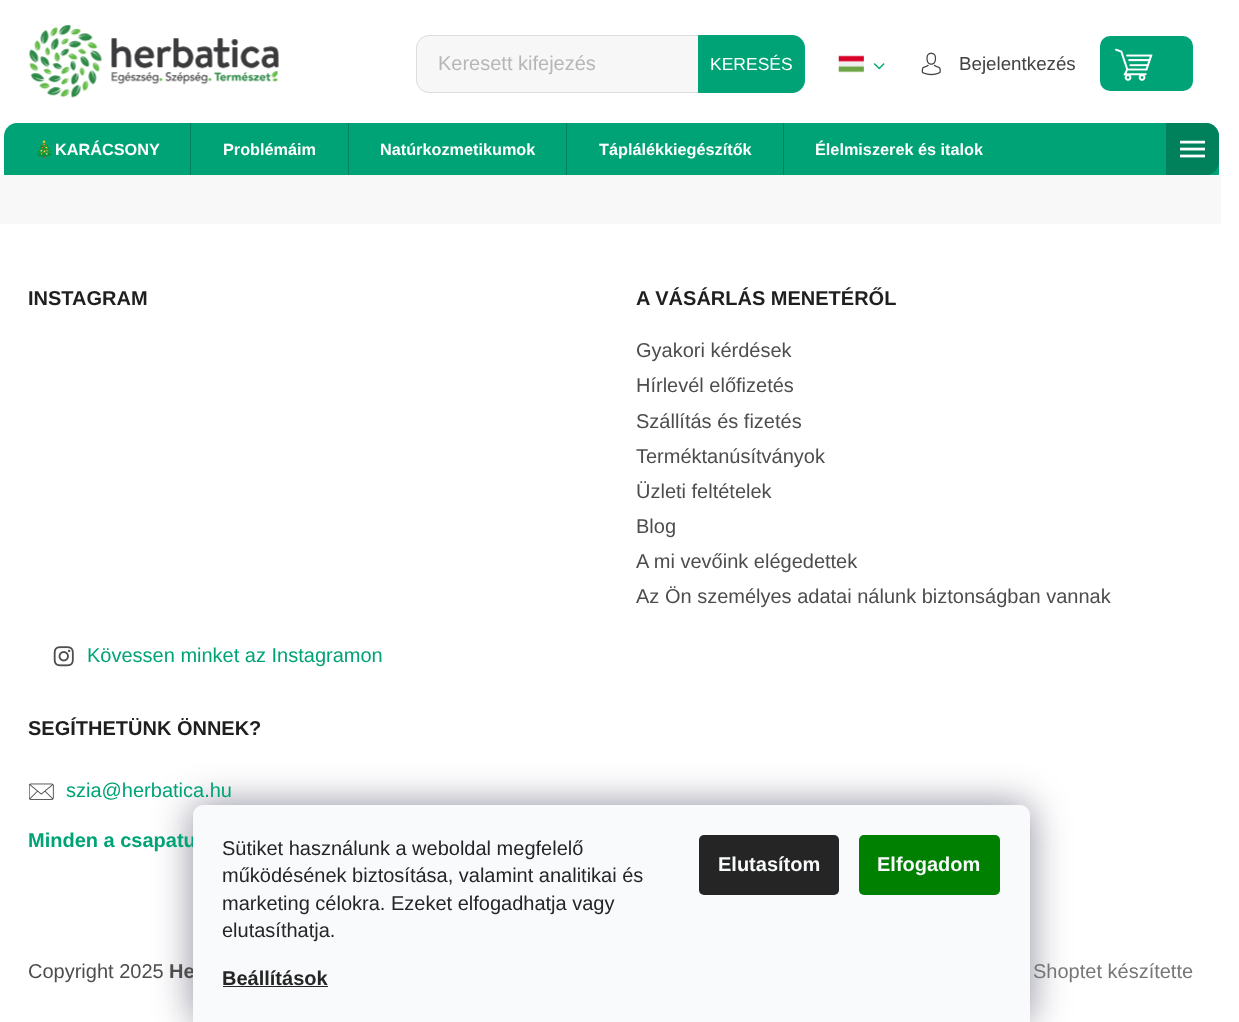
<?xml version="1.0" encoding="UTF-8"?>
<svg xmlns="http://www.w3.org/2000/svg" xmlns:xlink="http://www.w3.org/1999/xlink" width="1239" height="1022">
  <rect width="100%" height="100%" fill="#ffffff" />
  <rect y="175" width="1221" height="49" fill="#f8f8f8" />
  <image x="29" y="25" width="250" height="73" xlink:href="image1.png" />
  <rect x="416.5" y="35.5" width="388" height="57" rx="12.5" fill="#f7f7f8" stroke="#dddddd" />
  <path d="M 698.5 35.5 h 93.5 c 7 0 12.5 5.5 12.5 12.5 v 32 c 0 7 -5.5 12.5 -12.5 12.5 h -93.5 z" fill="#00a376" stroke="#00a376" />
  <image x="838" y="55" width="26" height="18" xlink:href="image2.png" />
  <image x="873" y="63" width="12" height="7" xlink:href="image3.png" />
  <image x="921" y="52" width="20" height="24" xlink:href="image4.png" />
  <rect x="1100" y="36" width="93" height="55" rx="10" fill="#00a376" />
  <image x="1115" y="48" width="38" height="33" xlink:href="image5.png" />
  <path d="M 17 123 h 1189 c 7 0 13 6 13 13 v 39 h -1215 v -39 c 0 -7 6 -13 13 -13 z" fill="#00a376" />
  <rect x="190" y="123" width="1" height="52" fill="#00805b" />
  <rect x="348" y="123" width="1" height="52" fill="#00805b" />
  <rect x="566" y="123" width="1" height="52" fill="#00805b" />
  <rect x="783" y="123" width="1" height="52" fill="#00805b" />
  <path d="M 1166 123 h 40 c 7 0 13 6 13 13 v 26 c 0 7 -6 13 -13 13 h -40 z" fill="#00805b" />
  <image x="1180" y="140" width="25" height="18" xlink:href="image6.png" />
  <image x="53" y="646" width="21" height="21" xlink:href="image7.png" />
  <image x="29" y="783" width="25" height="17" xlink:href="image8.png" />
  <rect x="193" y="805" width="837" height="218" rx="10" fill="#1b1939" fill-opacity="0.5" filter="blur(19px)" />
  <text x="438" y="70" style="font-family: Liberation Sans; font-size: 20px; fill: #b6b6b6">Keresett kifejezés</text>
  <text x="710" y="70" style="font-family: Liberation Sans; font-size: 17.5px; fill: #ffffff">KERESÉS</text>
  <text x="959" y="70" style="font-family: Liberation Sans; font-size: 18.75px; fill: #424242">Bejelentkezés</text>
  <text x="34" y="155" style="font-family: Noto Color Emoji; font-size: 16.25px; font-weight: bold; fill: #ffffff">🎄</text>
  <text x="55" y="155" style="font-family: Liberation Sans; font-size: 16.25px; font-weight: bold; fill: #ffffff">KARÁCSONY</text>
  <text x="223" y="155" style="font-family: Liberation Sans; font-size: 16.25px; font-weight: bold; fill: #ffffff">Problémáim</text>
  <text x="380" y="155" style="font-family: Liberation Sans; font-size: 16.25px; font-weight: bold; fill: #ffffff">Natúrkozmetikumok</text>
  <text x="599" y="155" style="font-family: Liberation Sans; font-size: 16.25px; font-weight: bold; fill: #ffffff">Táplálékkiegészítők</text>
  <text x="815" y="155" style="font-family: Liberation Sans; font-size: 16.25px; font-weight: bold; fill: #ffffff">Élelmiszerek és italok</text>
  <text x="28" y="305" style="font-family: Liberation Sans; font-size: 20px; font-weight: bold; fill: #1f1f1f">INSTAGRAM</text>
  <text x="87" y="662" style="font-family: Liberation Sans; font-size: 20px; fill: #00a376">Kövessen minket az Instagramon</text>
  <text x="636" y="305" style="font-family: Liberation Sans; font-size: 20px; font-weight: bold; fill: #1f1f1f">A VÁSÁRLÁS MENETÉRŐL</text>
  <text x="636" y="357" style="font-family: Liberation Sans; font-size: 20px; fill: #4d4d4d">Gyakori kérdések</text>
  <text x="636" y="392" style="font-family: Liberation Sans; font-size: 20px; fill: #4d4d4d">Hírlevél előfizetés</text>
  <text x="636" y="428" style="font-family: Liberation Sans; font-size: 20px; fill: #4d4d4d">Szállítás és fizetés</text>
  <text x="636" y="463" style="font-family: Liberation Sans; font-size: 20px; fill: #4d4d4d">Terméktanúsítványok</text>
  <text x="636" y="498" style="font-family: Liberation Sans; font-size: 20px; fill: #4d4d4d">Üzleti feltételek</text>
  <text x="636" y="533" style="font-family: Liberation Sans; font-size: 20px; fill: #4d4d4d">Blog</text>
  <text x="636" y="568" style="font-family: Liberation Sans; font-size: 20px; fill: #4d4d4d">A mi vevőink elégedettek</text>
  <text x="636" y="603" style="font-family: Liberation Sans; font-size: 20px; fill: #4d4d4d">Az Ön személyes adatai nálunk biztonságban vannak</text>
  <text x="28" y="735" style="font-family: Liberation Sans; font-size: 20px; font-weight: bold; fill: #1f1f1f">SEGÍTHETÜNK ÖNNEK?</text>
  <text x="66" y="797" style="font-family: Liberation Sans; font-size: 20px; fill: #00a376">szia@herbatica.hu</text>
  <text x="28" y="847" style="font-family: Liberation Sans; font-size: 20px; font-weight: bold; fill: #00a376">Minden a csapatu</text>
  <text x="28" y="978" style="font-family: Liberation Sans; font-size: 20px; fill: #4d4d4d">Copyright 2025</text>
  <text x="169" y="978" style="font-family: Liberation Sans; font-size: 20px; font-weight: bold; fill: #4d4d4d">He</text>
  <text x="1033" y="978" style="font-family: Liberation Sans; font-size: 20px; fill: #767676">Shoptet készítette</text>
  <path d="M 203 805 h 817 c 5.5 0 10 4.5 10 10 v 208 h -837 v -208 c 0 -5.5 4.5 -10 10 -10 z" fill="#f8fafb" />
  <text x="222" y="855" style="font-family: Liberation Sans; font-size: 20px; fill: #252525">Sütiket használunk a weboldal megfelelő</text>
  <text x="222" y="882" style="font-family: Liberation Sans; font-size: 20px; fill: #252525">működésének biztosítása, valamint analitikai és</text>
  <text x="222" y="910" style="font-family: Liberation Sans; font-size: 20px; fill: #252525">marketing célokra. Ezeket elfogadhatja vagy</text>
  <text x="222" y="937" style="font-family: Liberation Sans; font-size: 20px; fill: #252525">elutasíthatja.</text>
  <text x="222" y="985" style="font-family: Liberation Sans; font-size: 20px; font-weight: bold; fill: #252525">Beállítások</text>
  <rect x="223" y="986" width="105" height="1" fill="#252525" />
  <rect x="699" y="835" width="140" height="60" rx="5" fill="#252525" />
  <text x="718" y="871" style="font-family: Liberation Sans; font-size: 20px; font-weight: bold; fill: #f8fafb">Elutasítom</text>
  <rect x="859" y="835" width="141" height="60" rx="5" fill="#008000" />
  <text x="877" y="871" style="font-family: Liberation Sans; font-size: 20px; font-weight: bold; fill: #f8fafb">Elfogadom</text>
</svg>
